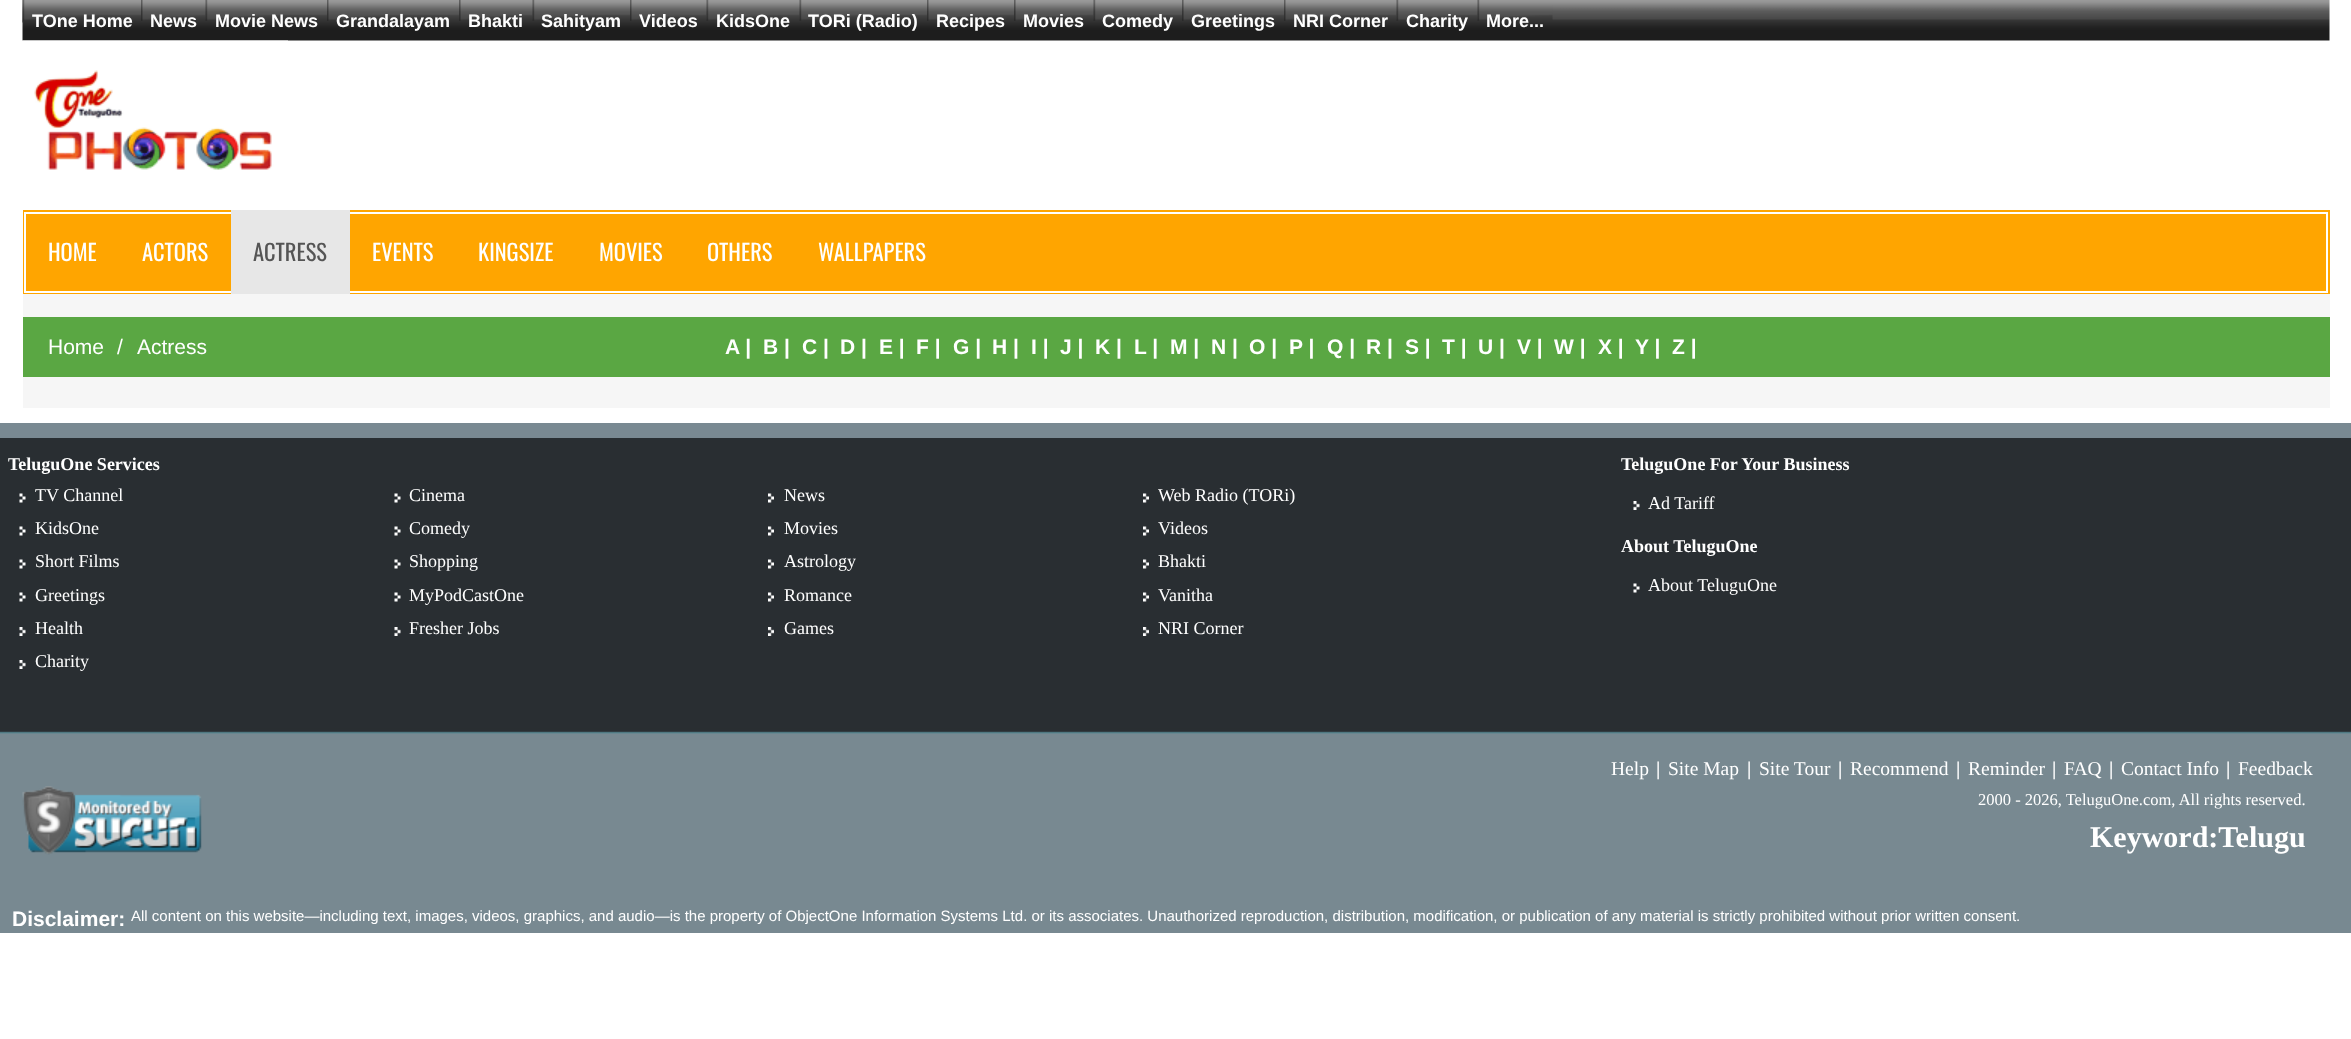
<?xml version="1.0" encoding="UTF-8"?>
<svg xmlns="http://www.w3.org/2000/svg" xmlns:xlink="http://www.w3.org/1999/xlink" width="2351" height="1039">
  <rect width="100%" height="100%" fill="#ffffff" />
  <image x="22" y="0" width="2308" height="41" xlink:href="image1.png" />
  <image x="22" y="0" width="119" height="23" xlink:href="image2.png" />
  <image x="141" y="0" width="65" height="21" xlink:href="image3.png" />
  <image x="205" y="0" width="122" height="21" xlink:href="image4.png" />
  <image x="327" y="0" width="132" height="21" xlink:href="image5.png" />
  <image x="459" y="0" width="74" height="21" xlink:href="image6.png" />
  <image x="532" y="0" width="98" height="21" xlink:href="image7.png" />
  <image x="630" y="0" width="77" height="21" xlink:href="image8.png" />
  <image x="706" y="0" width="94" height="21" xlink:href="image9.png" />
  <image x="799" y="0" width="128" height="21" xlink:href="image10.png" />
  <image x="927" y="0" width="87" height="21" xlink:href="image11.png" />
  <image x="1014" y="0" width="80" height="21" xlink:href="image12.png" />
  <image x="1093" y="0" width="89" height="21" xlink:href="image13.png" />
  <image x="1182" y="0" width="102" height="21" xlink:href="image14.png" />
  <image x="1284" y="0" width="113" height="21" xlink:href="image15.png" />
  <image x="1396" y="0" width="82" height="21" xlink:href="image16.png" />
  <image x="1477" y="0" width="76" height="21" xlink:href="image17.png" />
  <image x="22" y="40" width="266" height="130" xlink:href="image18.png" />
  <rect x="23" y="210" width="2307" height="84" fill="#ffa500" />
  <rect x="25" y="213" width="2302" height="79" fill="none" stroke="#ffffff" stroke-width="2" />
  <rect x="231" y="210" width="119" height="84" fill="#e7e7e7" />
  <rect x="23" y="294" width="2307" height="114" fill="#f6f6f6" />
  <rect x="23" y="317" width="2307" height="60" fill="#5aa743" />
  <rect y="423" width="2351" height="15" fill="#798992" />
  <image x="0" y="438" width="2351" height="465" xlink:href="image19.png" />
  <image x="19" y="493" width="7" height="10" xlink:href="image20.png" />
  <image x="19" y="526" width="7" height="10" xlink:href="image20.png" />
  <image x="19" y="559" width="7" height="10" xlink:href="image20.png" />
  <image x="19" y="592" width="7" height="10" xlink:href="image20.png" />
  <image x="19" y="627" width="7" height="9" xlink:href="image21.png" />
  <image x="19" y="660" width="7" height="9" xlink:href="image21.png" />
  <image x="394" y="493" width="7" height="10" xlink:href="image22.png" />
  <image x="394" y="526" width="7" height="10" xlink:href="image22.png" />
  <image x="394" y="559" width="7" height="10" xlink:href="image22.png" />
  <image x="394" y="592" width="7" height="10" xlink:href="image22.png" />
  <image x="394" y="627" width="7" height="9" xlink:href="image23.png" />
  <image x="768" y="493" width="6" height="10" xlink:href="image24.png" />
  <image x="768" y="526" width="6" height="10" xlink:href="image24.png" />
  <image x="768" y="559" width="6" height="10" xlink:href="image24.png" />
  <image x="768" y="592" width="6" height="10" xlink:href="image24.png" />
  <image x="768" y="627" width="6" height="9" xlink:href="image25.png" />
  <image x="1143" y="493" width="6" height="10" xlink:href="image24.png" />
  <image x="1143" y="526" width="6" height="10" xlink:href="image24.png" />
  <image x="1143" y="559" width="6" height="10" xlink:href="image24.png" />
  <image x="1143" y="592" width="6" height="10" xlink:href="image24.png" />
  <image x="1143" y="627" width="6" height="9" xlink:href="image25.png" />
  <image x="1633" y="501" width="7" height="9" xlink:href="image21.png" />
  <image x="1633" y="583" width="7" height="10" xlink:href="image20.png" />
  <image x="22" y="786" width="180" height="69" xlink:href="image26.png" />
  <rect y="903" width="2351" height="30" fill="#788991" />
  <text x="32" y="27" style="font-family: Liberation Sans; font-size: 18px; font-weight: bold; fill: #ffffff">TOne Home</text>
  <text x="150" y="27" style="font-family: Liberation Sans; font-size: 18px; font-weight: bold; fill: #ffffff">News</text>
  <text x="215" y="27" style="font-family: Liberation Sans; font-size: 18px; font-weight: bold; fill: #ffffff">Movie News</text>
  <text x="336" y="27" style="font-family: Liberation Sans; font-size: 18px; font-weight: bold; fill: #ffffff">Grandalayam</text>
  <text x="468" y="27" style="font-family: Liberation Sans; font-size: 18px; font-weight: bold; fill: #ffffff">Bhakti</text>
  <text x="541" y="27" style="font-family: Liberation Sans; font-size: 18px; font-weight: bold; fill: #ffffff">Sahityam</text>
  <text x="639" y="27" style="font-family: Liberation Sans; font-size: 18px; font-weight: bold; fill: #ffffff">Videos</text>
  <text x="716" y="27" style="font-family: Liberation Sans; font-size: 18px; font-weight: bold; fill: #ffffff">KidsOne</text>
  <text x="808" y="27" style="font-family: Liberation Sans; font-size: 18px; font-weight: bold; fill: #ffffff">TORi (Radio)</text>
  <text x="936" y="27" style="font-family: Liberation Sans; font-size: 18px; font-weight: bold; fill: #ffffff">Recipes</text>
  <text x="1023" y="27" style="font-family: Liberation Sans; font-size: 18px; font-weight: bold; fill: #ffffff">Movies</text>
  <text x="1102" y="27" style="font-family: Liberation Sans; font-size: 18px; font-weight: bold; fill: #ffffff">Comedy</text>
  <text x="1191" y="27" style="font-family: Liberation Sans; font-size: 18px; font-weight: bold; fill: #ffffff">Greetings</text>
  <text x="1293" y="27" style="font-family: Liberation Sans; font-size: 18px; font-weight: bold; fill: #ffffff">NRI Corner</text>
  <text x="1406" y="27" style="font-family: Liberation Sans; font-size: 18px; font-weight: bold; fill: #ffffff">Charity</text>
  <text x="1486" y="27" style="font-family: Liberation Sans; font-size: 18px; font-weight: bold; fill: #ffffff">More...</text>
  <text x="48" y="261" style="font-family: Oswald; font-size: 22.5px; fill: #ffffff">HOME</text>
  <text x="142" y="261" style="font-family: Oswald; font-size: 22.5px; fill: #ffffff">ACTORS</text>
  <text x="253" y="261" style="font-family: Oswald; font-size: 22.5px; fill: #555555">ACTRESS</text>
  <text x="372" y="261" style="font-family: Oswald; font-size: 22.5px; fill: #ffffff">EVENTS</text>
  <text x="478" y="261" style="font-family: Oswald; font-size: 22.5px; fill: #ffffff">KINGSIZE</text>
  <text x="599" y="261" style="font-family: Oswald; font-size: 22.5px; fill: #ffffff">MOVIES</text>
  <text x="707" y="261" style="font-family: Oswald; font-size: 22.5px; fill: #ffffff">OTHERS</text>
  <text x="818" y="261" style="font-family: Oswald; font-size: 22.5px; fill: #ffffff">WALLPAPERS</text>
  <text x="48" y="354" style="font-family: Liberation Sans; font-size: 21px; fill: #ffffff">Home</text>
  <text x="117" y="354" style="font-family: Liberation Sans; font-size: 21px; fill: #ffffff">/</text>
  <text x="137" y="354" style="font-family: Liberation Sans; font-size: 21px; fill: #ffffff">Actress</text>
  <text x="725" y="354" style="font-family: Liberation Sans; font-size: 21px; font-weight: bold; fill: #ffffff">A |</text>
  <text x="763" y="354" style="font-family: Liberation Sans; font-size: 21px; font-weight: bold; fill: #ffffff">B |</text>
  <text x="802" y="354" style="font-family: Liberation Sans; font-size: 21px; font-weight: bold; fill: #ffffff">C |</text>
  <text x="840" y="354" style="font-family: Liberation Sans; font-size: 21px; font-weight: bold; fill: #ffffff">D |</text>
  <text x="879" y="354" style="font-family: Liberation Sans; font-size: 21px; font-weight: bold; fill: #ffffff">E |</text>
  <text x="916" y="354" style="font-family: Liberation Sans; font-size: 21px; font-weight: bold; fill: #ffffff">F |</text>
  <text x="953" y="354" style="font-family: Liberation Sans; font-size: 21px; font-weight: bold; fill: #ffffff">G |</text>
  <text x="992" y="354" style="font-family: Liberation Sans; font-size: 21px; font-weight: bold; fill: #ffffff">H |</text>
  <text x="1031" y="354" style="font-family: Liberation Sans; font-size: 21px; font-weight: bold; fill: #ffffff">I |</text>
  <text x="1060" y="354" style="font-family: Liberation Sans; font-size: 21px; font-weight: bold; fill: #ffffff">J |</text>
  <text x="1095" y="354" style="font-family: Liberation Sans; font-size: 21px; font-weight: bold; fill: #ffffff">K |</text>
  <text x="1134" y="354" style="font-family: Liberation Sans; font-size: 21px; font-weight: bold; fill: #ffffff">L |</text>
  <text x="1170" y="354" style="font-family: Liberation Sans; font-size: 21px; font-weight: bold; fill: #ffffff">M |</text>
  <text x="1211" y="354" style="font-family: Liberation Sans; font-size: 21px; font-weight: bold; fill: #ffffff">N |</text>
  <text x="1249" y="354" style="font-family: Liberation Sans; font-size: 21px; font-weight: bold; fill: #ffffff">O |</text>
  <text x="1289" y="354" style="font-family: Liberation Sans; font-size: 21px; font-weight: bold; fill: #ffffff">P |</text>
  <text x="1327" y="354" style="font-family: Liberation Sans; font-size: 21px; font-weight: bold; fill: #ffffff">Q |</text>
  <text x="1366" y="354" style="font-family: Liberation Sans; font-size: 21px; font-weight: bold; fill: #ffffff">R |</text>
  <text x="1405" y="354" style="font-family: Liberation Sans; font-size: 21px; font-weight: bold; fill: #ffffff">S |</text>
  <text x="1442" y="354" style="font-family: Liberation Sans; font-size: 21px; font-weight: bold; fill: #ffffff">T |</text>
  <text x="1478" y="354" style="font-family: Liberation Sans; font-size: 21px; font-weight: bold; fill: #ffffff">U |</text>
  <text x="1517" y="354" style="font-family: Liberation Sans; font-size: 21px; font-weight: bold; fill: #ffffff">V |</text>
  <text x="1554" y="354" style="font-family: Liberation Sans; font-size: 21px; font-weight: bold; fill: #ffffff">W |</text>
  <text x="1598" y="354" style="font-family: Liberation Sans; font-size: 21px; font-weight: bold; fill: #ffffff">X |</text>
  <text x="1635" y="354" style="font-family: Liberation Sans; font-size: 21px; font-weight: bold; fill: #ffffff">Y |</text>
  <text x="1672" y="354" style="font-family: Liberation Sans; font-size: 21px; font-weight: bold; fill: #ffffff">Z |</text>
  <text x="8" y="470" style="font-family: Liberation Serif; font-size: 18px; font-weight: bold; fill: #ffffff">TeluguOne Services</text>
  <text x="35" y="501" style="font-family: Liberation Serif; font-size: 18px; fill: #ffffff">TV Channel</text>
  <text x="35" y="534" style="font-family: Liberation Serif; font-size: 18px; fill: #ffffff">KidsOne</text>
  <text x="35" y="567" style="font-family: Liberation Serif; font-size: 18px; fill: #ffffff">Short Films</text>
  <text x="35" y="601" style="font-family: Liberation Serif; font-size: 18px; fill: #ffffff">Greetings</text>
  <text x="35" y="634" style="font-family: Liberation Serif; font-size: 18px; fill: #ffffff">Health</text>
  <text x="35" y="667" style="font-family: Liberation Serif; font-size: 18px; fill: #ffffff">Charity</text>
  <text x="409" y="501" style="font-family: Liberation Serif; font-size: 18px; fill: #ffffff">Cinema</text>
  <text x="409" y="534" style="font-family: Liberation Serif; font-size: 18px; fill: #ffffff">Comedy</text>
  <text x="409" y="567" style="font-family: Liberation Serif; font-size: 18px; fill: #ffffff">Shopping</text>
  <text x="409" y="601" style="font-family: Liberation Serif; font-size: 18px; fill: #ffffff">MyPodCastOne</text>
  <text x="409" y="634" style="font-family: Liberation Serif; font-size: 18px; fill: #ffffff">Fresher Jobs</text>
  <text x="784" y="501" style="font-family: Liberation Serif; font-size: 18px; fill: #ffffff">News</text>
  <text x="784" y="534" style="font-family: Liberation Serif; font-size: 18px; fill: #ffffff">Movies</text>
  <text x="784" y="567" style="font-family: Liberation Serif; font-size: 18px; fill: #ffffff">Astrology</text>
  <text x="784" y="601" style="font-family: Liberation Serif; font-size: 18px; fill: #ffffff">Romance</text>
  <text x="784" y="634" style="font-family: Liberation Serif; font-size: 18px; fill: #ffffff">Games</text>
  <text x="1158" y="501" style="font-family: Liberation Serif; font-size: 18px; fill: #ffffff">Web Radio (TORi)</text>
  <text x="1158" y="534" style="font-family: Liberation Serif; font-size: 18px; fill: #ffffff">Videos</text>
  <text x="1158" y="567" style="font-family: Liberation Serif; font-size: 18px; fill: #ffffff">Bhakti</text>
  <text x="1158" y="601" style="font-family: Liberation Serif; font-size: 18px; fill: #ffffff">Vanitha</text>
  <text x="1158" y="634" style="font-family: Liberation Serif; font-size: 18px; fill: #ffffff">NRI Corner</text>
  <text x="1621" y="470" style="font-family: Liberation Serif; font-size: 18px; font-weight: bold; fill: #ffffff">TeluguOne For Your Business</text>
  <text x="1648" y="509" style="font-family: Liberation Serif; font-size: 18px; fill: #ffffff">Ad Tariff</text>
  <text x="1621" y="552" style="font-family: Liberation Serif; font-size: 18px; font-weight: bold; fill: #ffffff">About TeluguOne</text>
  <text x="1648" y="591" style="font-family: Liberation Serif; font-size: 18px; fill: #ffffff">About TeluguOne</text>
  <text x="1611" y="775" style="font-family: Liberation Serif; font-size: 19.5px; fill: #ffffff">Help</text>
  <text x="1656" y="775" style="font-family: Liberation Serif; font-size: 19.5px; font-weight: bold; fill: #ffffff">|</text>
  <text x="1668" y="775" style="font-family: Liberation Serif; font-size: 19.5px; fill: #ffffff">Site Map</text>
  <text x="1747" y="775" style="font-family: Liberation Serif; font-size: 19.5px; font-weight: bold; fill: #ffffff">|</text>
  <text x="1759" y="775" style="font-family: Liberation Serif; font-size: 19.5px; fill: #ffffff">Site Tour</text>
  <text x="1838" y="775" style="font-family: Liberation Serif; font-size: 19.5px; font-weight: bold; fill: #ffffff">|</text>
  <text x="1850" y="775" style="font-family: Liberation Serif; font-size: 19.5px; fill: #ffffff">Recommend</text>
  <text x="1956" y="775" style="font-family: Liberation Serif; font-size: 19.5px; font-weight: bold; fill: #ffffff">|</text>
  <text x="1968" y="775" style="font-family: Liberation Serif; font-size: 19.5px; fill: #ffffff">Reminder</text>
  <text x="2052" y="775" style="font-family: Liberation Serif; font-size: 19.5px; font-weight: bold; fill: #ffffff">|</text>
  <text x="2064" y="775" style="font-family: Liberation Serif; font-size: 19.5px; fill: #ffffff">FAQ</text>
  <text x="2109" y="775" style="font-family: Liberation Serif; font-size: 19.5px; font-weight: bold; fill: #ffffff">|</text>
  <text x="2121" y="775" style="font-family: Liberation Serif; font-size: 19.5px; fill: #ffffff">Contact Info</text>
  <text x="2226" y="775" style="font-family: Liberation Serif; font-size: 19.5px; font-weight: bold; fill: #ffffff">|</text>
  <text x="2238" y="775" style="font-family: Liberation Serif; font-size: 19.5px; fill: #ffffff">Feedback</text>
  <text x="1978" y="805" style="font-family: Liberation Serif; font-size: 16.5px; fill: #ffffff">2000 - 2026, TeluguOne.com, All rights reserved.</text>
  <text x="2090" y="847" style="font-family: Liberation Serif; font-size: 30px; font-weight: bold; fill: #ffffff">Keyword:Telugu</text>
  <text x="12" y="926" style="font-family: Liberation Sans; font-size: 21px; font-weight: bold; fill: #ffffff">Disclaimer:</text>
  <text x="131" y="921" style="font-family: Liberation Sans; font-size: 15px; fill: #ffffff">All content on this website—including text, images, videos, graphics, and audio—is the property of ObjectOne Information Systems Ltd. or its associates. Unauthorized reproduction, distribution, modification, or publication of any material is strictly prohibited without prior written consent.</text>
</svg>
